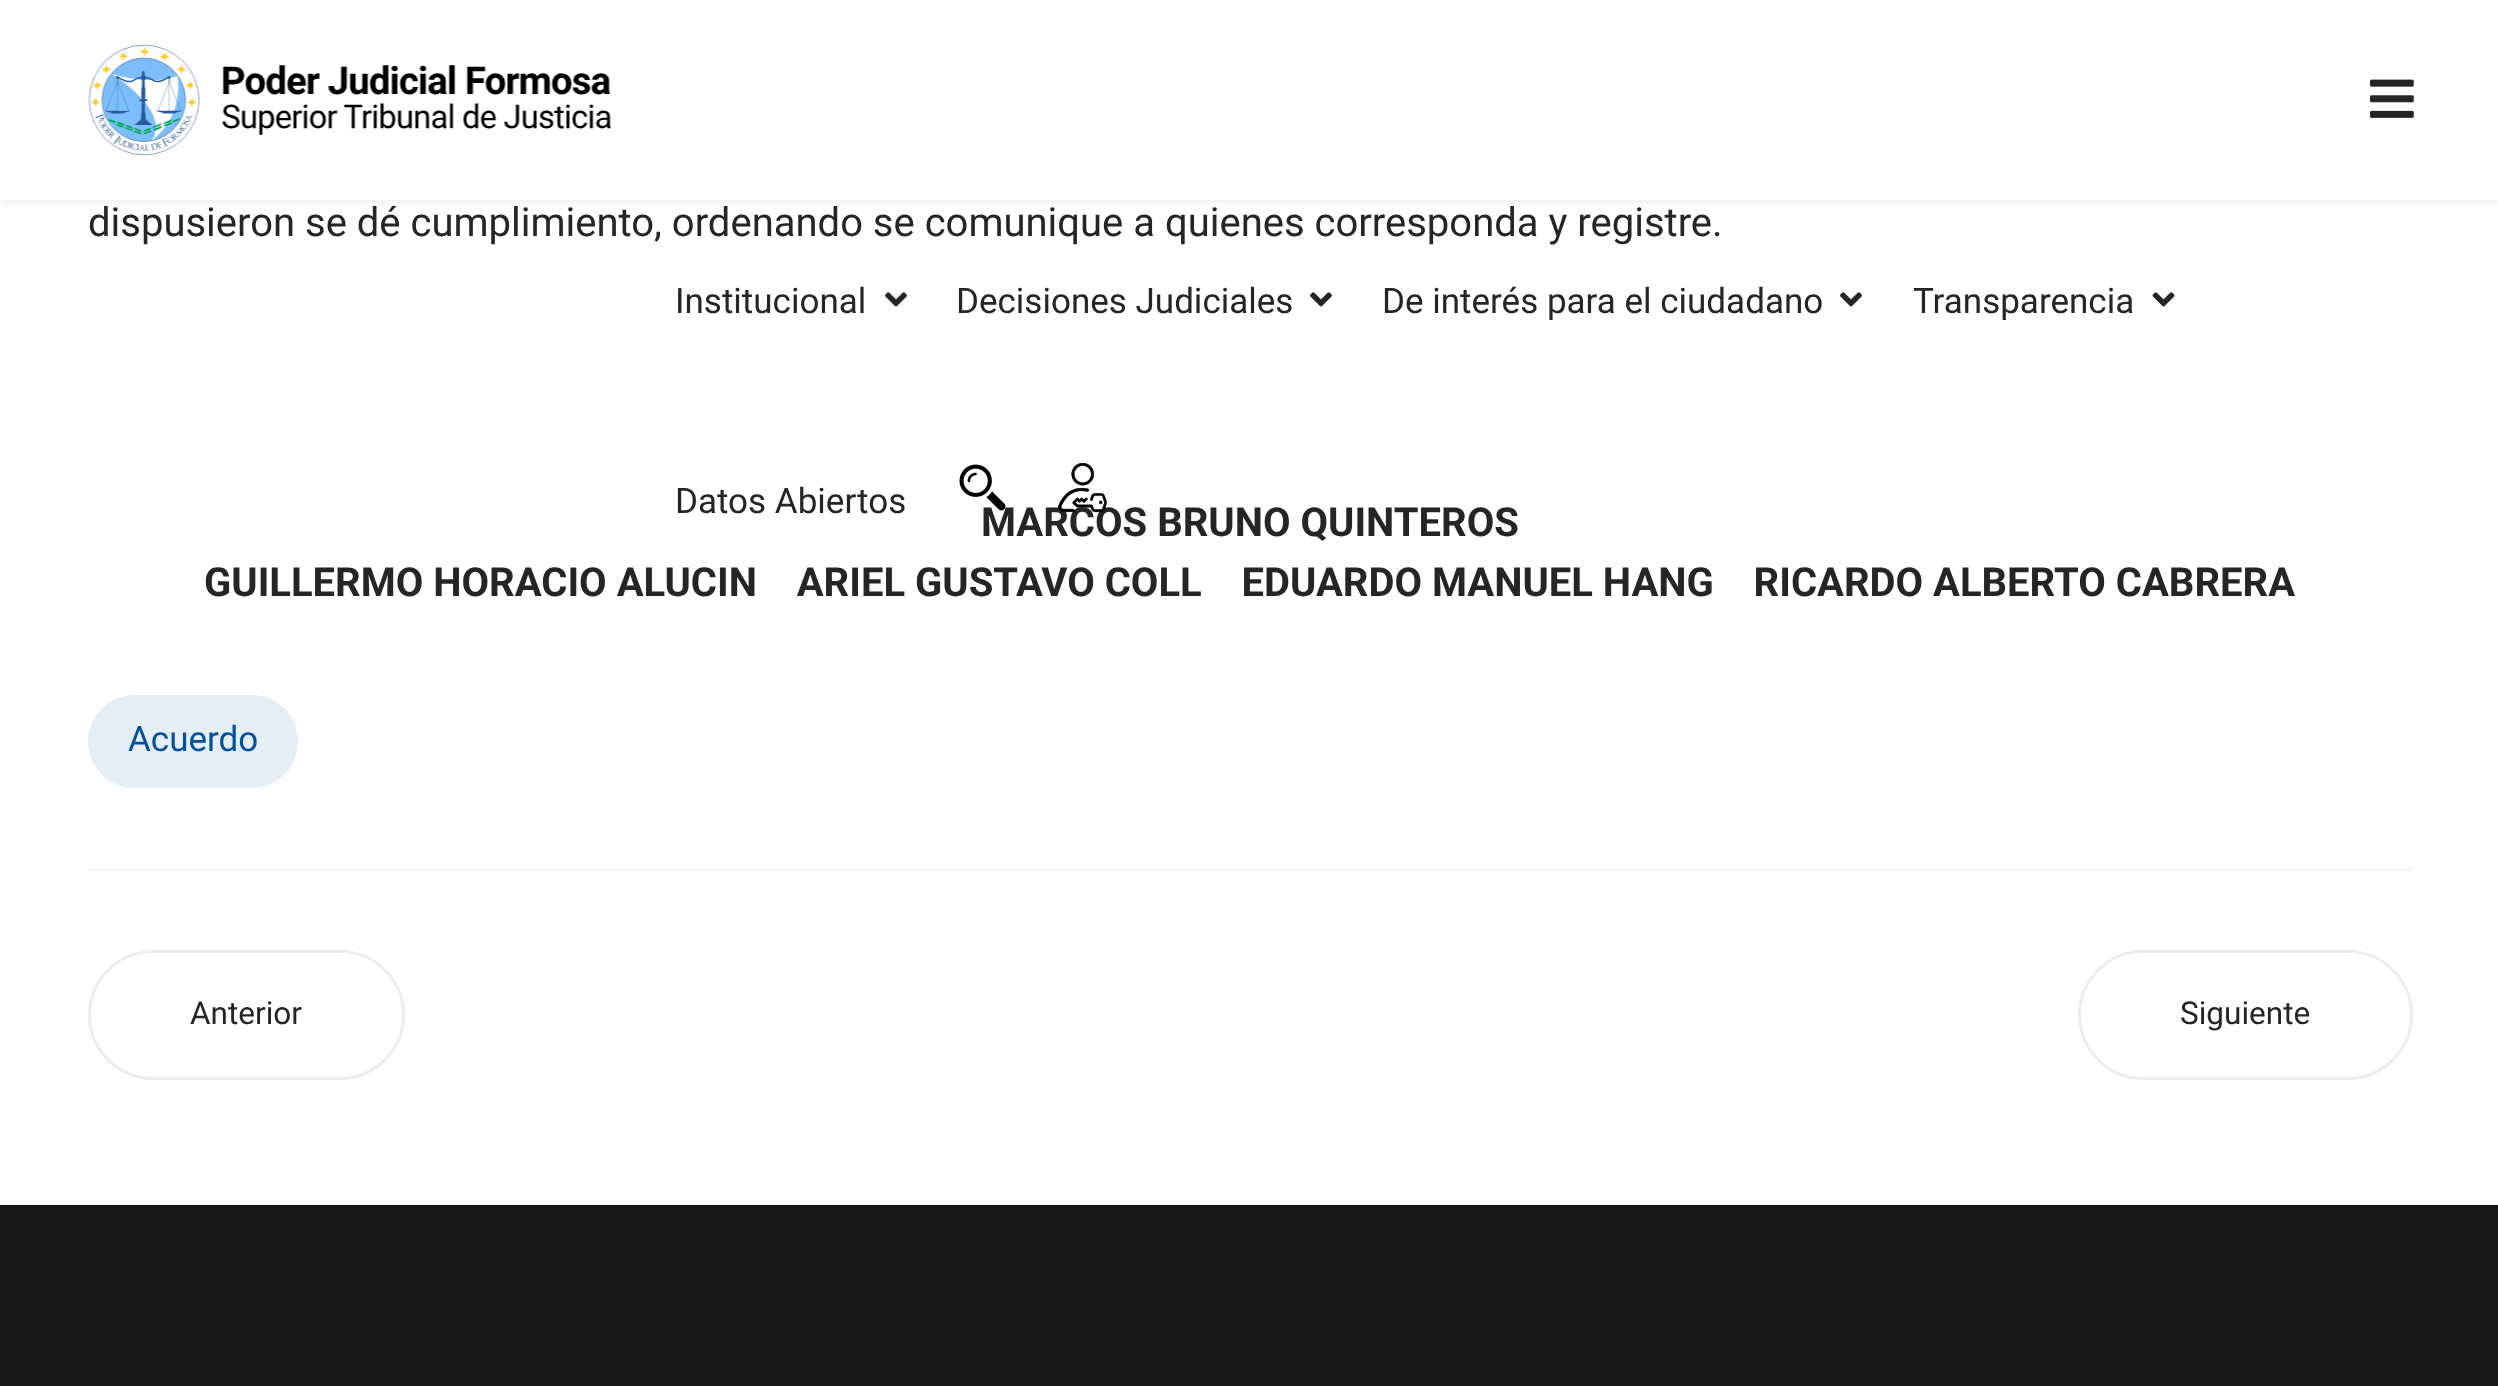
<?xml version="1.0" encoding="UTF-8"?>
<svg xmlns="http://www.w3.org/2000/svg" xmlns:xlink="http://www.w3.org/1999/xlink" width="2498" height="1386">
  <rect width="100%" height="100%" fill="#ffffff" />
  <rect x="88" y="695" width="210" height="93" rx="46.5" fill="#e6eef5" />
  <rect x="88" y="868" width="2325" height="3" fill="#f5f5f5" />
  <rect x="89.5" y="951.5" width="314" height="127" rx="63.5" fill="none" stroke="#ededed" stroke-width="3" />
  <rect x="2079.5" y="951.5" width="332" height="127" rx="63.5" fill="none" stroke="#ededed" stroke-width="3" />
  <rect width="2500" height="200" fill="#000000" fill-opacity="0.1" filter="blur(5px)" />
  <rect width="2498" height="200" fill="#ffffff" />
  <image x="88" y="44" width="523" height="112" xlink:href="image1.png" />
  <image x="2370" y="79" width="44" height="39" xlink:href="image2.png" />
  <image x="885" y="292" width="22" height="15" xlink:href="image3.png" />
  <image x="1310" y="292" width="22" height="15" xlink:href="image3.png" />
  <image x="1840" y="292" width="22" height="15" xlink:href="image3.png" />
  <image x="2152" y="292" width="23" height="15" xlink:href="image4.png" />
  <rect y="1205" width="2498" height="181" fill="#171717" />
  <text x="88" y="236" style="font-family: Roboto; font-size: 40px; fill: #252525">dispusieron se dé cumplimiento, ordenando se comunique a quienes corresponda y registre.</text>
  <text x="981" y="536" style="font-family: Roboto; font-size: 40px; font-weight: bold; fill: #252525">MARCOS BRUNO QUINTEROS</text>
  <text x="204" y="596" style="font-family: Roboto; font-size: 40px; font-weight: bold; fill: #252525" xml:space="preserve">GUILLERMO HORACIO ALUCIN    ARIEL GUSTAVO COLL    EDUARDO MANUEL HANG    RICARDO ALBERTO CABRERA</text>
  <text x="128" y="751" style="font-family: Roboto; font-size: 35px; fill: #05509c">Acuerdo</text>
  <text x="190" y="1024" style="font-family: Roboto; font-size: 31.5px; fill: #252525">Anterior</text>
  <text x="2180" y="1024" style="font-family: Roboto; font-size: 31.5px; fill: #252525">Siguiente</text>
  <text x="675" y="313" style="font-family: Roboto; font-size: 35px; fill: #252525">Institucional</text>
  <text x="956" y="313" style="font-family: Roboto; font-size: 35px; fill: #252525">Decisiones Judiciales</text>
  <text x="1382" y="313" style="font-family: Roboto; font-size: 35px; fill: #252525">De interés para el ciudadano</text>
  <text x="1913" y="313" style="font-family: Roboto; font-size: 35px; fill: #252525">Transparencia</text>
  <text x="675" y="513" style="font-family: Roboto; font-size: 35px; fill: #252525">Datos Abiertos</text>
  <image x="959" y="464" width="47" height="47" xlink:href="image5.png" />
  <image x="1058" y="463" width="49" height="50" xlink:href="image6.png" />
</svg>
